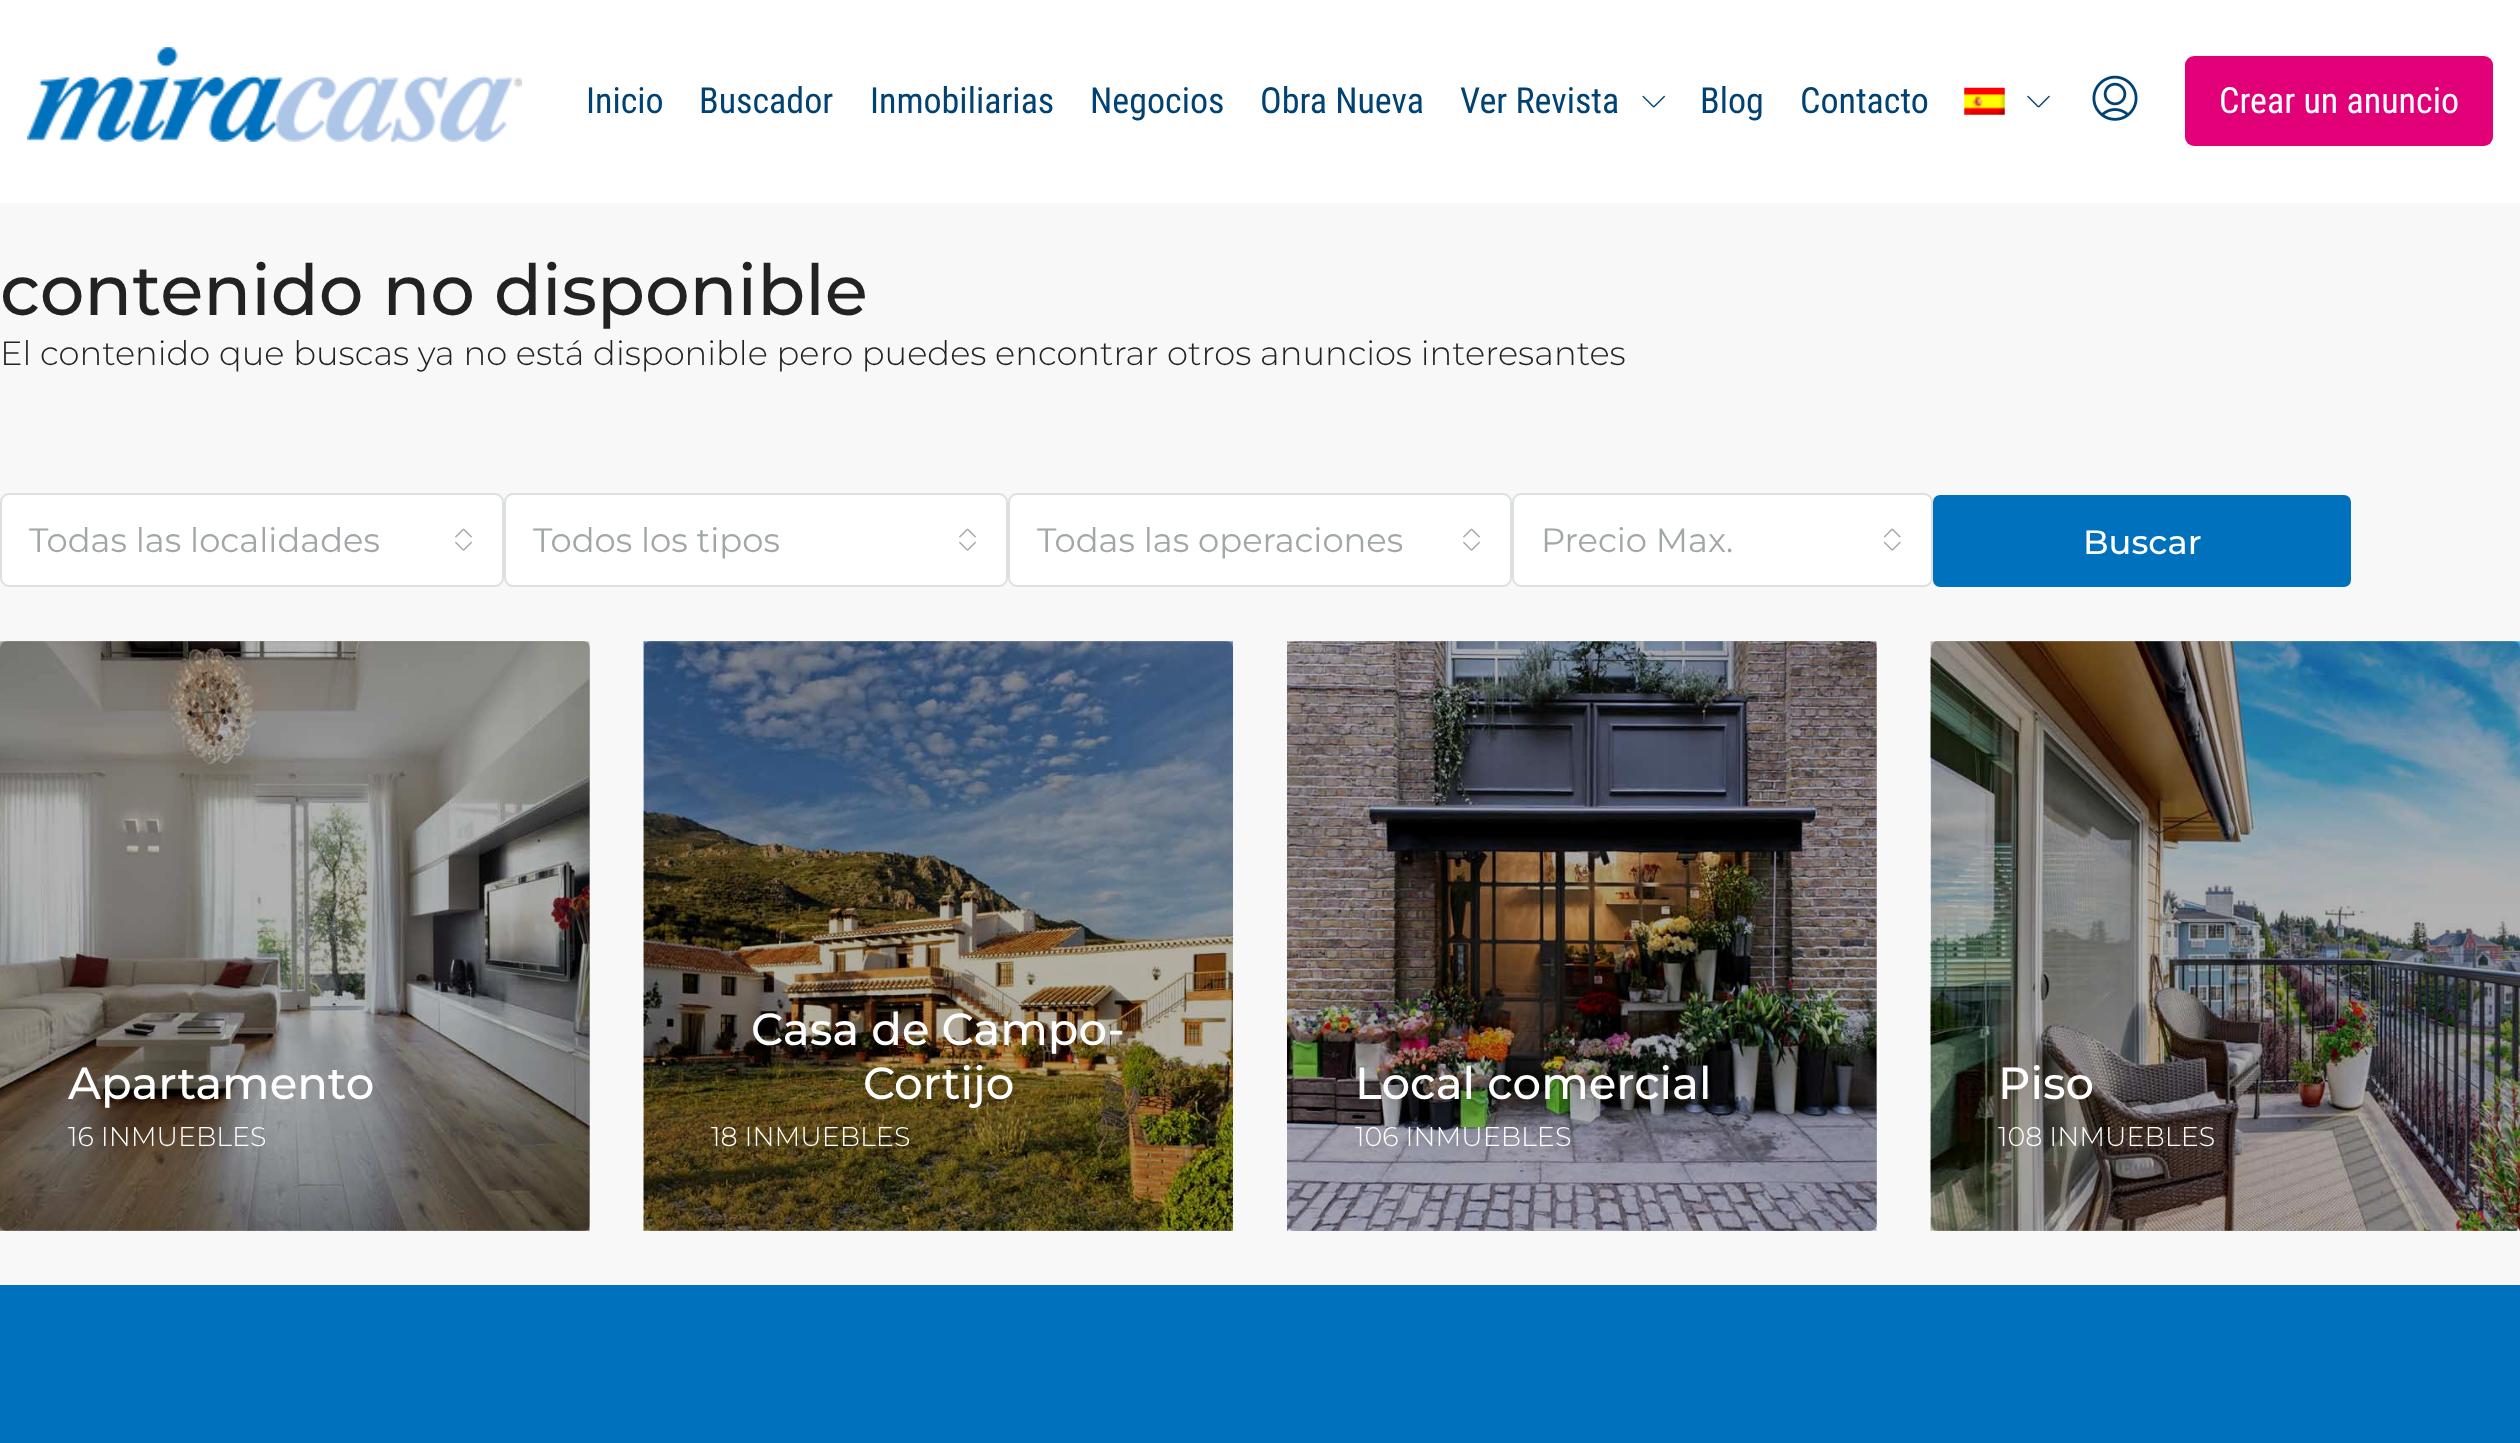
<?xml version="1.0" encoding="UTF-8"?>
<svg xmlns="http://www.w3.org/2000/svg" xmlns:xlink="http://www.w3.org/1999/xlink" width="2520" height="1443">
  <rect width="100%" height="100%" fill="#f8f8f8" />
  <rect width="2520" height="203" fill="#ffffff" />
  <image x="27" y="47" width="495" height="95" xlink:href="image1.png" />
  <image x="1642" y="95" width="23" height="13" xlink:href="image2.png" />
  <image x="1964" y="87" width="41" height="28" xlink:href="image3.png" />
  <image x="2027" y="95" width="23" height="13" xlink:href="image4.png" />
  <image x="2092" y="75" width="46" height="46" xlink:href="image5.png" />
  <rect x="2185" y="56" width="308" height="90" rx="9" fill="#e20079" />
  <rect x="1" y="494" width="502" height="92" rx="8" fill="#ffffff" stroke="#dce0e0" stroke-width="2" />
  <image x="455" y="528" width="17" height="23" xlink:href="image6.png" />
  <rect x="505" y="494" width="502" height="92" rx="8" fill="#ffffff" stroke="#dce0e0" stroke-width="2" />
  <image x="959" y="528" width="17" height="23" xlink:href="image6.png" />
  <rect x="1009" y="494" width="502" height="92" rx="8" fill="#ffffff" stroke="#dce0e0" stroke-width="2" />
  <image x="1463" y="528" width="17" height="23" xlink:href="image6.png" />
  <rect x="1513" y="494" width="419" height="92" rx="8" fill="#ffffff" stroke="#dce0e0" stroke-width="2" />
  <image x="1883" y="528" width="18" height="23" xlink:href="image7.png" />
  <rect x="1934" y="496" width="416" height="90" rx="6" fill="#0071bc" stroke="#0071bc" stroke-width="2" />
  <image x="0" y="641" width="590" height="590" xlink:href="image8.png" />
  <rect y="641" width="590" height="590" rx="7" fill="#000000" fill-opacity="0.3" />
  <image x="643" y="641" width="590" height="590" xlink:href="image9.png" />
  <rect x="644" y="641" width="589" height="590" rx="7" fill="#000000" fill-opacity="0.3" />
  <image x="1287" y="641" width="590" height="590" xlink:href="image10.png" />
  <rect x="1287" y="641" width="590" height="590" rx="7" fill="#000000" fill-opacity="0.3" />
  <image x="1930" y="641" width="590" height="590" xlink:href="image11.png" />
  <rect x="1931" y="641" width="589" height="590" rx="7" fill="#000000" fill-opacity="0.3" />
  <rect y="1285" width="2520" height="158" fill="#0071bc" />
  <text x="586" y="113" style="font-family: Roboto Condensed; font-size: 36px; fill: #004274">Inicio</text>
  <text x="699" y="113" style="font-family: Roboto Condensed; font-size: 36px; fill: #004274">Buscador</text>
  <text x="870" y="113" style="font-family: Roboto Condensed; font-size: 36px; fill: #004274">Inmobiliarias</text>
  <text x="1090" y="113" style="font-family: Roboto Condensed; font-size: 36px; fill: #004274">Negocios</text>
  <text x="1260" y="113" style="font-family: Roboto Condensed; font-size: 36px; fill: #004274">Obra Nueva</text>
  <text x="1460" y="113" style="font-family: Roboto Condensed; font-size: 36px; fill: #004274">Ver Revista</text>
  <text x="1700" y="113" style="font-family: Roboto Condensed; font-size: 36px; fill: #004274">Blog</text>
  <text x="1800" y="113" style="font-family: Roboto Condensed; font-size: 36px; fill: #004274">Contacto</text>
  <text x="2219" y="113" style="font-family: Roboto Condensed; font-size: 36px; fill: #ffffff">Crear un anuncio</text>
  <text x="0" y="315" style="font-family: Montserrat; font-size: 70.4px; font-weight: 500; fill: #222222">contenido no disponible</text>
  <text x="0" y="365" style="font-family: Montserrat; font-size: 33.75px; font-weight: 300; fill: #222222">El contenido que buscas ya no está disponible pero puedes encontrar otros anuncios interesantes</text>
  <text x="29" y="552" style="font-family: Montserrat; font-size: 33.75px; fill: #a1a7a8">Todas las localidades</text>
  <text x="533" y="552" style="font-family: Montserrat; font-size: 33.75px; fill: #a1a7a8">Todos los tipos</text>
  <text x="1037" y="552" style="font-family: Montserrat; font-size: 33.75px; fill: #a1a7a8">Todas las operaciones</text>
  <text x="1541" y="552" style="font-family: Montserrat; font-size: 33.75px; fill: #a1a7a8">Precio Max.</text>
  <text x="2083" y="554" style="font-family: Montserrat; font-size: 33.75px; font-weight: 500; fill: #ffffff">Buscar</text>
  <text x="68" y="1099" style="font-family: Montserrat; font-size: 45px; font-weight: 500; fill: #ffffff">Apartamento</text>
  <text x="68" y="1146" style="font-family: Montserrat; font-size: 27px; font-weight: 300; fill: #ffffff">16 INMUEBLES</text>
  <text x="751" y="1045" style="font-family: Montserrat; font-size: 45px; font-weight: 500; fill: #ffffff">Casa de Campo-</text>
  <text x="863" y="1099" style="font-family: Montserrat; font-size: 45px; font-weight: 500; fill: #ffffff">Cortijo</text>
  <text x="711" y="1146" style="font-family: Montserrat; font-size: 27px; font-weight: 300; fill: #ffffff">18 INMUEBLES</text>
  <text x="1355" y="1099" style="font-family: Montserrat; font-size: 45px; font-weight: 500; fill: #ffffff">Local comercial</text>
  <text x="1355" y="1146" style="font-family: Montserrat; font-size: 27px; font-weight: 300; fill: #ffffff">106 INMUEBLES</text>
  <text x="1998" y="1099" style="font-family: Montserrat; font-size: 45px; font-weight: 500; fill: #ffffff">Piso</text>
  <text x="1998" y="1146" style="font-family: Montserrat; font-size: 27px; font-weight: 300; fill: #ffffff">108 INMUEBLES</text>
</svg>
